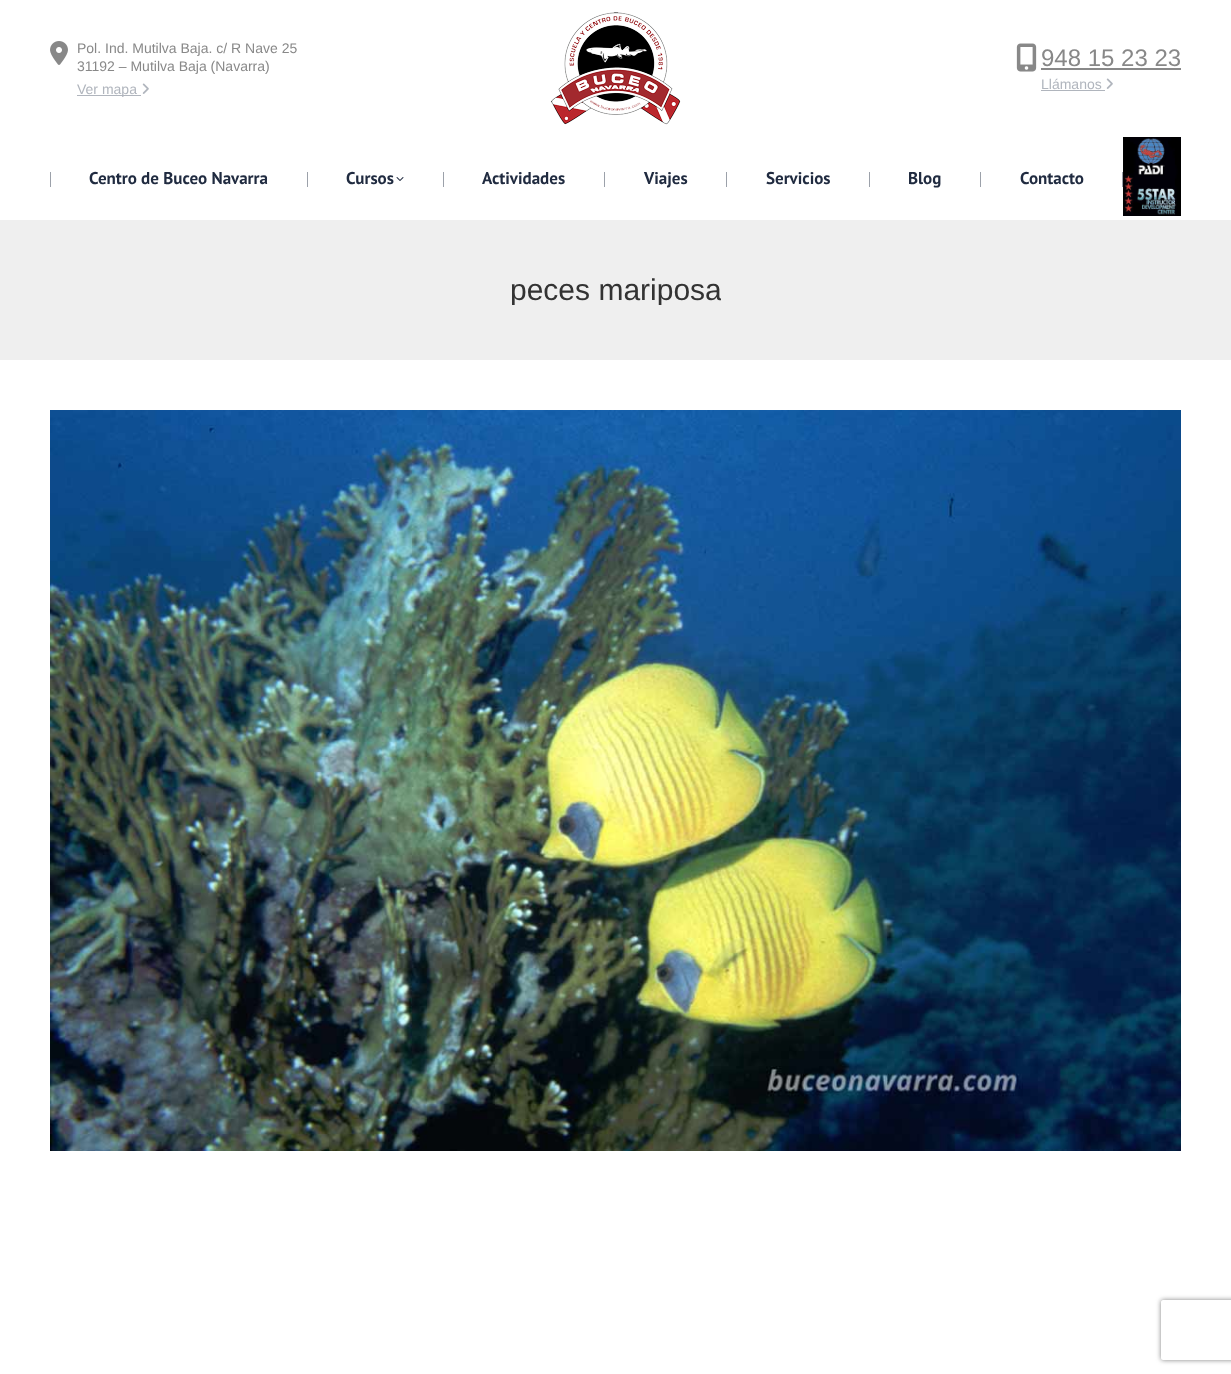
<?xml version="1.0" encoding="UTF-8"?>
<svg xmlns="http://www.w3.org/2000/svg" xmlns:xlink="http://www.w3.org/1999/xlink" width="1231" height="1374">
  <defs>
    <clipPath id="clip1"><path d="M 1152 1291 h 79 v 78 h -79 z m 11 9 h 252 c 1 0 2 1 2 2 v 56 c 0 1 -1 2 -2 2 h -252 c -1 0 -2 -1 -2 -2 v -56 c 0 -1 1 -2 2 -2 z" clip-rule="evenodd" /></clipPath>
    <clipPath id="clip2"><rect x="510" y="275" width="211" height="30" /></clipPath>
  </defs>
  <rect width="100%" height="100%" fill="#ffffff" />
  <image x="50" y="41" width="18" height="24" xlink:href="image1.png" />
  <rect x="77" y="95" width="64" height="1" fill="#b0b5bd" />
  <image x="142" y="83" width="7" height="11" xlink:href="image2.png" />
  <image x="551" y="12" width="130" height="113" xlink:href="image3.png" />
  <image x="1016" y="43" width="21" height="29" xlink:href="image4.png" />
  <rect x="1041" y="68" width="140" height="2" fill="#888888" />
  <rect x="1041" y="90" width="64" height="1" fill="#b0b5bd" />
  <image x="1106" y="78" width="7" height="11" xlink:href="image2.png" />
  <rect x="50" y="172" width="1" height="15" fill="#9ca1aa" />
  <rect x="307" y="172" width="1" height="15" fill="#9ca1aa" />
  <image x="396" y="177" width="8" height="4" xlink:href="image5.png" />
  <rect x="443" y="172" width="1" height="15" fill="#9ca1aa" />
  <rect x="604" y="172" width="1" height="15" fill="#9ca1aa" />
  <rect x="726" y="172" width="1" height="15" fill="#9ca1aa" />
  <rect x="869" y="172" width="1" height="15" fill="#9ca1aa" />
  <rect x="980" y="172" width="1" height="15" fill="#9ca1aa" />
  <rect x="1122" y="172" width="1" height="15" fill="#9ca1aa" />
  <image x="1123" y="137" width="58" height="79" xlink:href="image6.png" />
  <rect y="220" width="1231" height="140" fill="#efefef" />
  <image x="50" y="410" width="1131" height="741" xlink:href="image7.png" />
  <g clip-path="url(#clip1)">
    <rect x="1161" y="1300" width="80" height="60" rx="2" fill="#808080" filter="blur(2.5px)" />
  </g>
  <text x="77" y="53" style="font-family: Liberation Sans; font-size: 14px; fill: #888888">Pol. Ind. Mutilva Baja. c/ R Nave 25</text>
  <text x="77" y="71" style="font-family: Liberation Sans; font-size: 14px; fill: #888888">31192 – Mutilva Baja (Navarra)</text>
  <text x="77" y="94" style="font-family: Liberation Sans; font-size: 14px; fill: #b0b5bd">Ver mapa</text>
  <text x="1041" y="66" style="font-family: Liberation Sans; font-size: 24px; fill: #888888">948 15 23 23</text>
  <text x="1041" y="89" style="font-family: Liberation Sans; font-size: 14px; fill: #b0b5bd">Llámanos</text>
  <text x="89" y="184" style="font-family: PT Sans; font-size: 17px; font-weight: bold; fill: #202b40">Centro de Buceo Navarra</text>
  <text x="346" y="184" style="font-family: PT Sans; font-size: 17px; font-weight: bold; fill: #202b40">Cursos</text>
  <text x="482" y="184" style="font-family: PT Sans; font-size: 17px; font-weight: bold; fill: #202b40">Actividades</text>
  <text x="644" y="184" style="font-family: PT Sans; font-size: 17px; font-weight: bold; fill: #202b40">Viajes</text>
  <text x="766" y="184" style="font-family: PT Sans; font-size: 17px; font-weight: bold; fill: #202b40">Servicios</text>
  <text x="908" y="184" style="font-family: PT Sans; font-size: 17px; font-weight: bold; fill: #202b40">Blog</text>
  <text x="1020" y="184" style="font-family: PT Sans; font-size: 17px; font-weight: bold; fill: #202b40">Contacto</text>
  <g clip-path="url(#clip2)">
    <text x="510" y="300" style="font-family: Liberation Sans; font-size: 30px; fill: #333333">peces mariposa</text>
  </g>
</svg>
